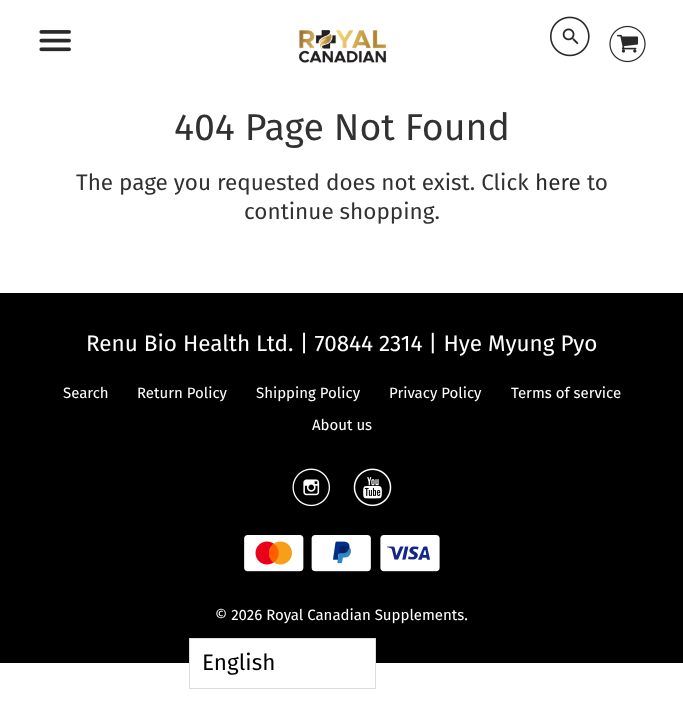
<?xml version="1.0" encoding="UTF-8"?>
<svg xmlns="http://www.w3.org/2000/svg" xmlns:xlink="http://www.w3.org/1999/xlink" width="683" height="720">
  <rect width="100%" height="100%" fill="#ffffff" />
  <rect y="293" width="683" height="370" fill="#000000" />
  <image x="292" y="468" width="38" height="39" xlink:href="image1.png" />
  <image x="353" y="468" width="39" height="39" xlink:href="image2.png" />
  <image x="244" y="535" width="60" height="37" xlink:href="image3.png" />
  <image x="311" y="535" width="60" height="37" xlink:href="image4.png" />
  <image x="380" y="535" width="60" height="37" xlink:href="image5.png" />
  <image x="39" y="30" width="32" height="22" xlink:href="image6.png" />
  <image x="298" y="30" width="89" height="33" xlink:href="image7.png" />
  <image x="550" y="16" width="40" height="41" xlink:href="image8.png" />
  <image x="609" y="25" width="37" height="38" xlink:href="image9.png" />
  <rect x="190" y="639" width="185" height="24" fill="#ffffff" />
  <rect x="189.5" y="638.5" width="186" height="50" fill="none" stroke="#dcdcdc" />
  <text x="174" y="140" style="font-family: Fira Sans; font-size: 37.5px; fill: #313131">404 Page Not Found</text>
  <text x="76" y="190" style="font-family: Fira Sans; font-size: 22.5px; fill: #313131">The page you requested does not exist. Click</text>
  <text x="535" y="190" style="font-family: Fira Sans; font-size: 22.5px; fill: #292929">here</text>
  <text x="587" y="190" style="font-family: Fira Sans; font-size: 22.5px; fill: #313131">to</text>
  <text x="244" y="219" style="font-family: Fira Sans; font-size: 22.5px; fill: #313131">continue shopping.</text>
  <text x="86" y="351" style="font-family: Fira Sans; font-size: 22.5px; fill: #ffffff">Renu Bio Health Ltd. | 70844 2314 | Hye Myung Pyo</text>
  <text x="63" y="398" style="font-family: Fira Sans; font-size: 15px; fill: #ffffff">Search</text>
  <text x="137" y="398" style="font-family: Fira Sans; font-size: 15px; fill: #ffffff">Return Policy</text>
  <text x="256" y="398" style="font-family: Fira Sans; font-size: 15px; fill: #ffffff">Shipping Policy</text>
  <text x="389" y="398" style="font-family: Fira Sans; font-size: 15px; fill: #ffffff">Privacy Policy</text>
  <text x="511" y="398" style="font-family: Fira Sans; font-size: 15px; fill: #ffffff">Terms of service</text>
  <text x="312" y="430" style="font-family: Fira Sans; font-size: 15px; fill: #ffffff">About us</text>
  <text x="215" y="620" style="font-family: Fira Sans; font-size: 15px; fill: #ffffff">© 2026 Royal Canadian Supplements.</text>
  <text x="202" y="670" style="font-family: Fira Sans; font-size: 22.5px; fill: #000000">English</text>
</svg>
